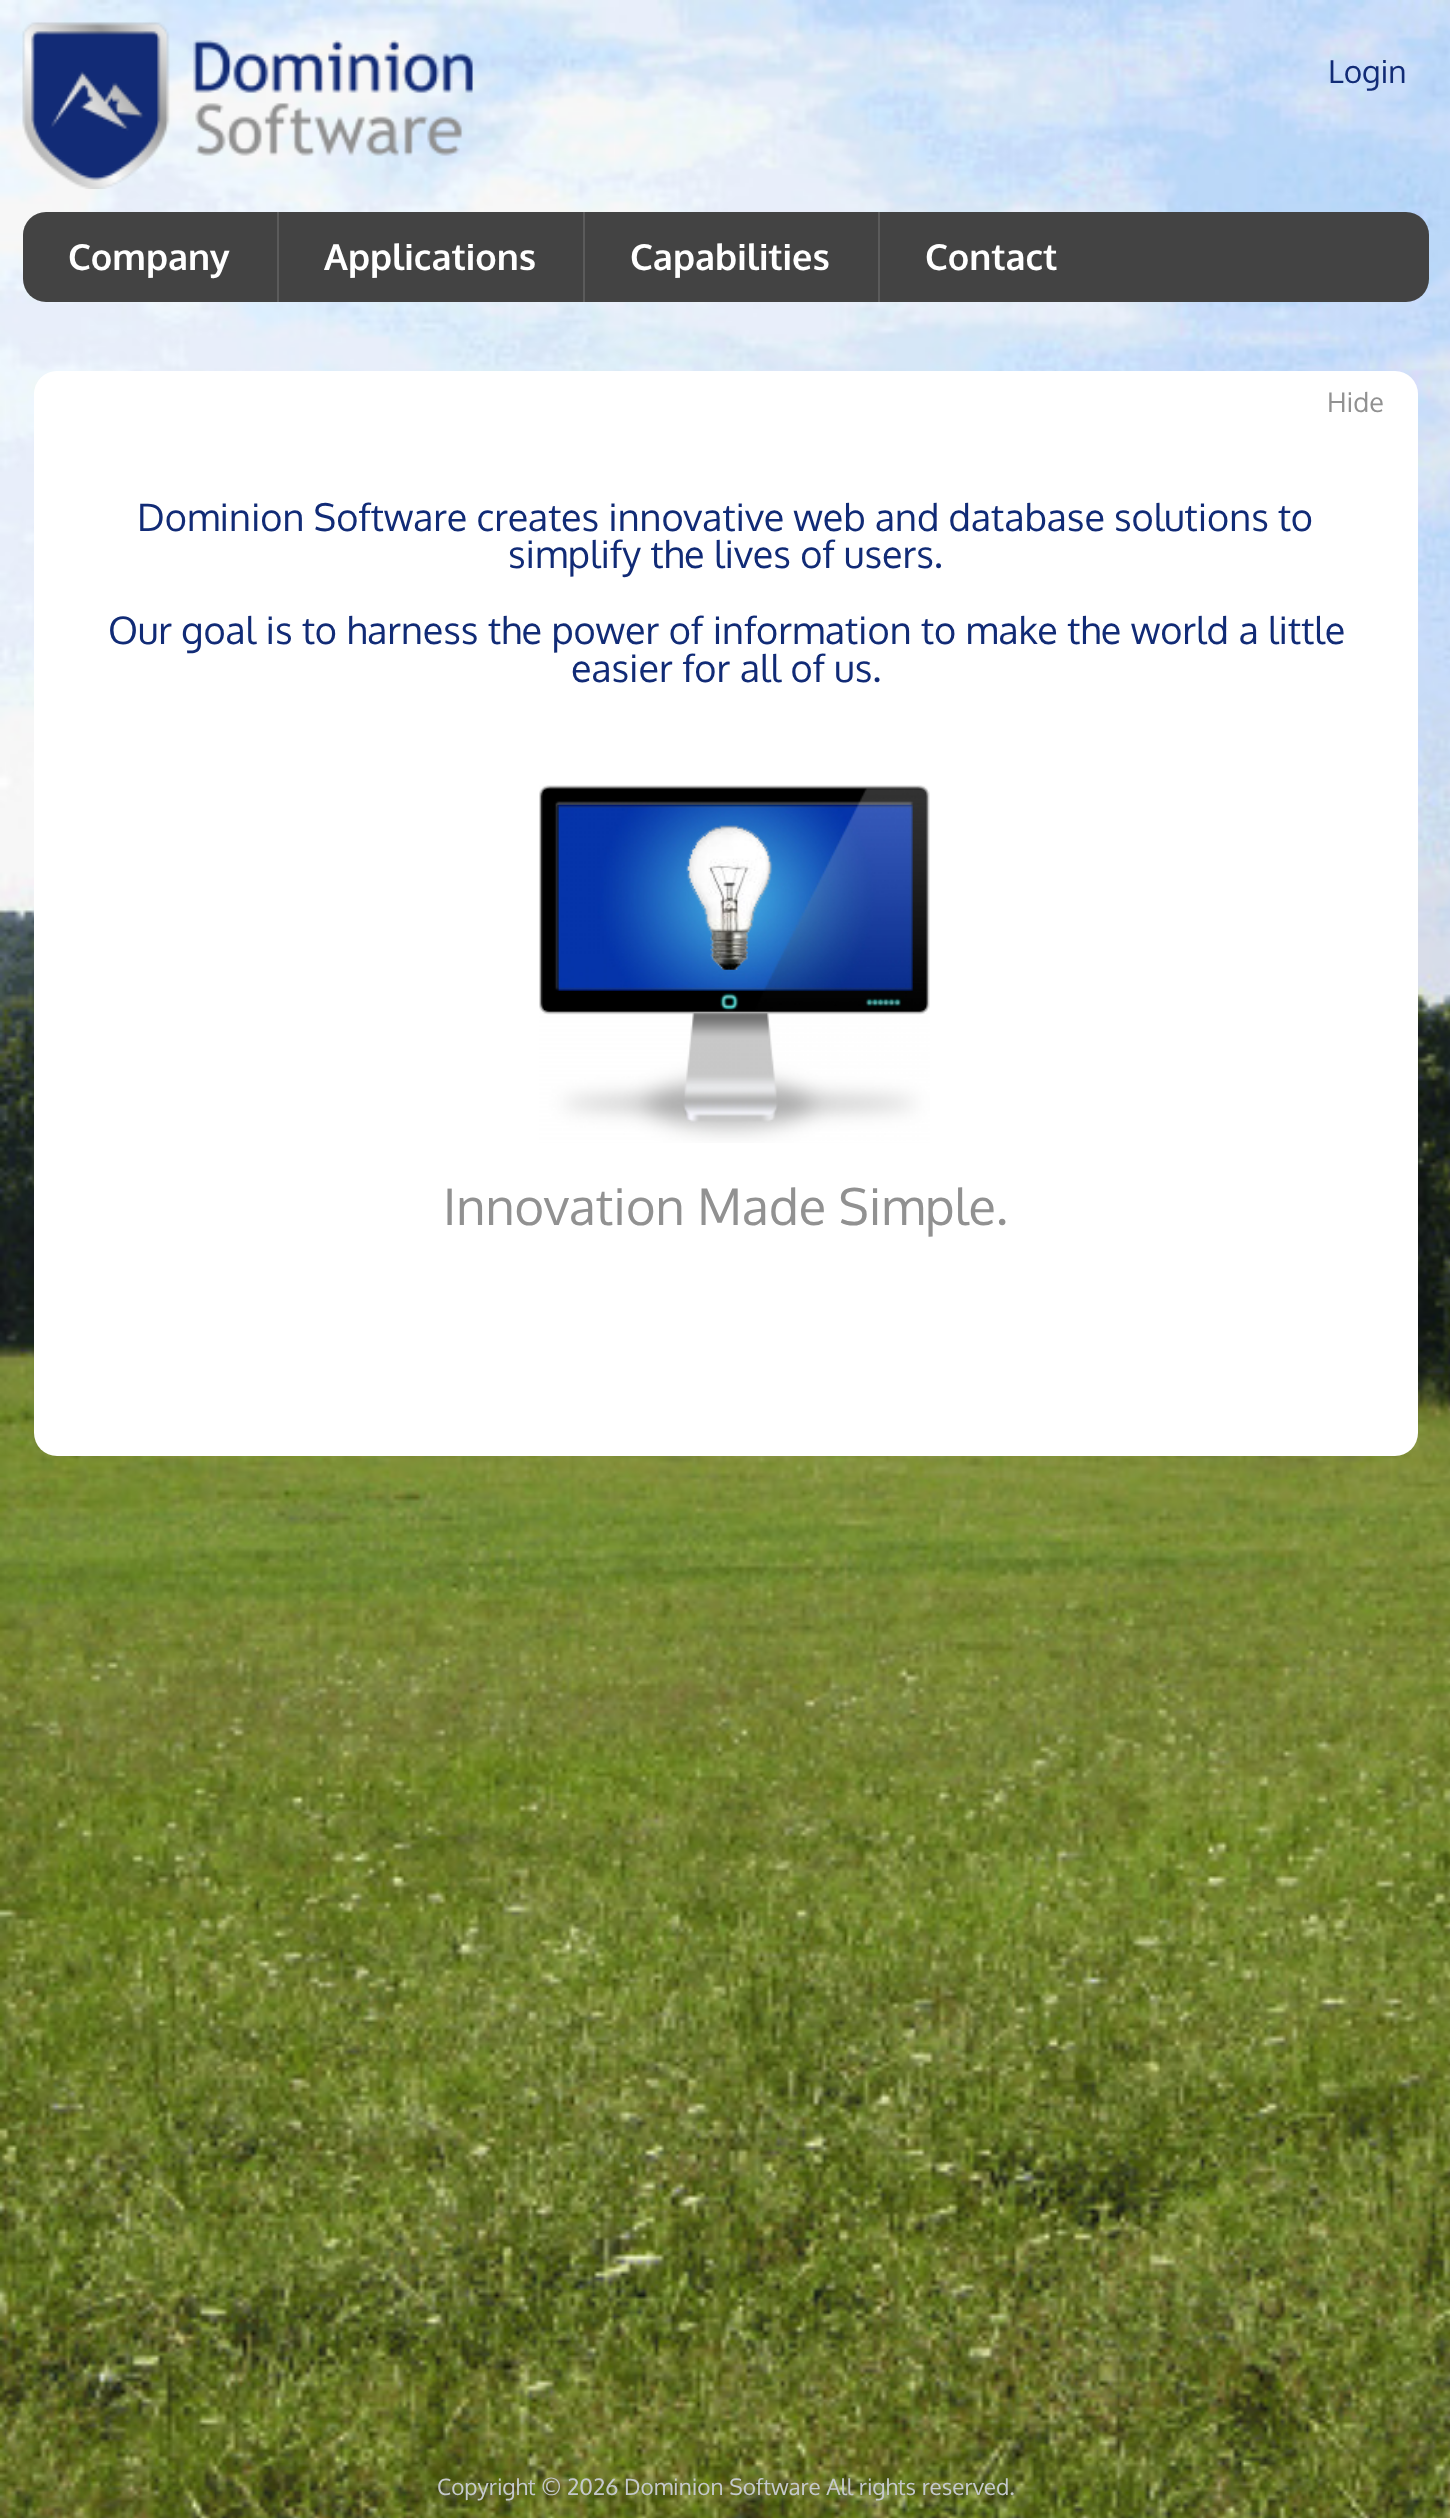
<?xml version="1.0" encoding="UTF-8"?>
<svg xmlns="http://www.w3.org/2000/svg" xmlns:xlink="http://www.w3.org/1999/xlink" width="1450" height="2518">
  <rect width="100%" height="100%" fill="#ffffff" />
  <image x="0" y="0" width="1450" height="2518" xlink:href="image1.png" />
  <image x="22" y="22" width="451" height="167" xlink:href="image2.png" />
  <rect x="23" y="212" width="1406" height="90" rx="23" fill="#434343" />
  <rect x="277" y="212" width="2" height="90" fill="#5b5b5b" />
  <rect x="583" y="212" width="2" height="90" fill="#5b5b5b" />
  <rect x="878" y="212" width="2" height="90" fill="#5b5b5b" />
  <rect x="34" y="371" width="1384" height="1085" rx="23" fill="#ffffff" />
  <image x="539" y="785" width="391" height="358" xlink:href="image3.png" />
  <text x="1328" y="83" style="font-family: Oxygen; font-size: 31.5px; fill: #112b76">Login</text>
  <text x="68" y="270" style="font-family: Oxygen; font-size: 36px; font-weight: bold; fill: #ffffff">Company</text>
  <text x="324" y="270" style="font-family: Oxygen; font-size: 36px; font-weight: bold; fill: #ffffff">Applications</text>
  <text x="630" y="270" style="font-family: Oxygen; font-size: 36px; font-weight: bold; fill: #ffffff">Capabilities</text>
  <text x="925" y="270" style="font-family: Oxygen; font-size: 36px; font-weight: bold; fill: #ffffff">Contact</text>
  <text x="1327" y="412" style="font-family: Oxygen; font-size: 27px; fill: #919191">Hide</text>
  <text x="137" y="531" word-spacing="-0.25" style="font-family: Oxygen; font-size: 37.8px; fill: #112b76">Dominion Software creates innovative web and database solutions to</text>
  <text x="508" y="568" style="font-family: Oxygen; font-size: 37.8px; fill: #112b76">simplify the lives of users.</text>
  <text x="108" y="644" style="font-family: Oxygen; font-size: 37.8px; fill: #112b76">Our goal is to harness the power of information to make the world a little</text>
  <text x="571" y="682" style="font-family: Oxygen; font-size: 37.8px; fill: #112b76">easier for all of us.</text>
  <text x="443" y="1225" style="font-family: Oxygen; font-size: 50.4px; fill: #919191">Innovation Made Simple.</text>
  <text x="437" y="2495" style="font-family: Oxygen; font-size: 22.5px; fill: #c5c9cd">Copyright © 2026 Dominion Software All rights reserved.</text>
</svg>
